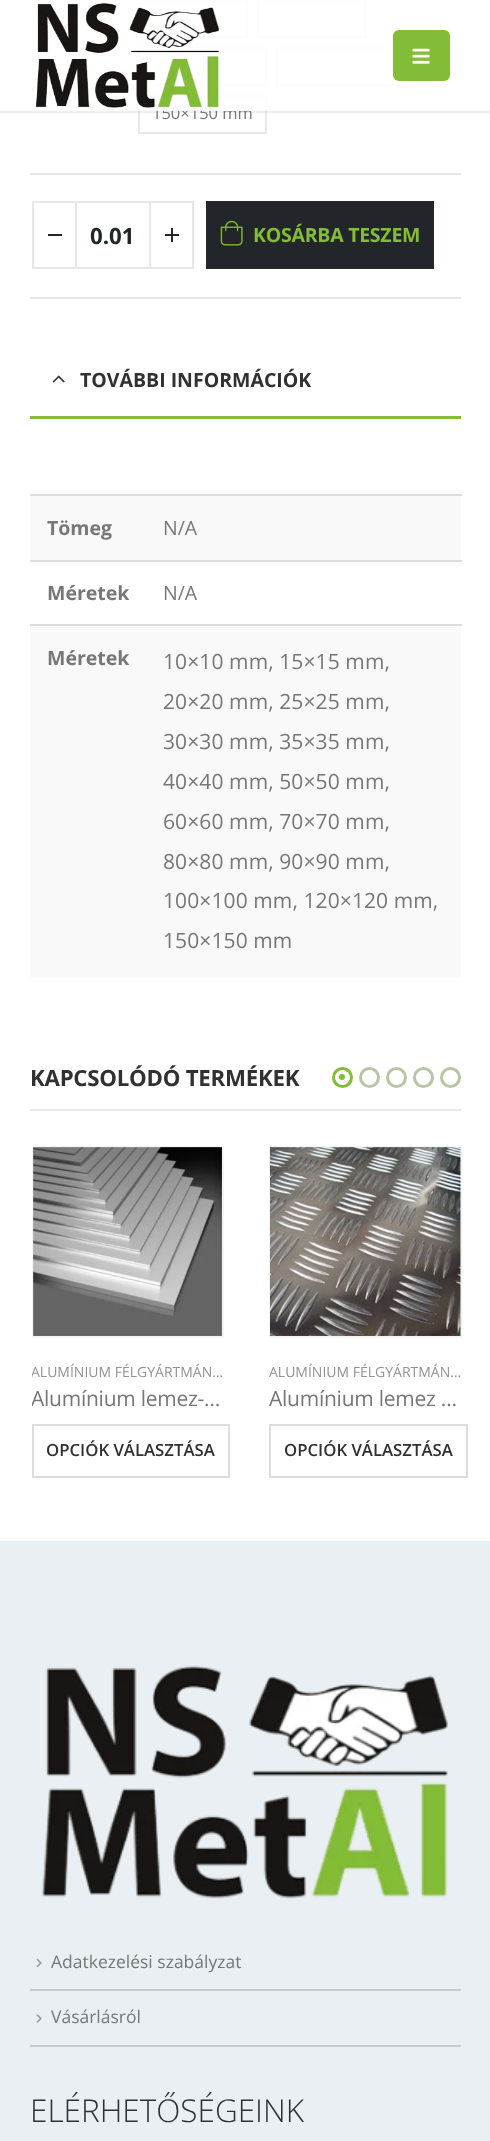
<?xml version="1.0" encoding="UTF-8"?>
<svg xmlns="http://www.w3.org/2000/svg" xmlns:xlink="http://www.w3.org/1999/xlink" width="490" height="2141">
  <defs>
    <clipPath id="clip1"><rect x="32" y="1361" width="192" height="24" /></clipPath>
    <clipPath id="clip2"><rect x="32" y="1385" width="192" height="28" /></clipPath>
  </defs>
  <rect width="100%" height="100%" fill="#ffffff" />
  <rect x="139" y="96" width="127" height="37" fill="none" stroke="#e9e9e9" stroke-width="2" />
  <path d="M 0 111 v 2 h 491 v -111 h -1 v 109 z" fill="#000000" fill-opacity="0.06" />
  <rect x="139" y="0" width="108" height="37" fill="none" stroke="#e9e9e9" stroke-width="2" />
  <rect x="258" y="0" width="107" height="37" fill="none" stroke="#e9e9e9" stroke-width="2" />
  <rect x="139" y="48" width="127" height="37" fill="none" stroke="#e9e9e9" stroke-width="2" />
  <rect x="277" y="48" width="126" height="37" fill="none" stroke="#e9e9e9" stroke-width="2" />
  <rect x="30" y="173" width="431" height="2" fill="#e7e7e7" />
  <rect x="30" y="297" width="431" height="2" fill="#e7e7e7" />
  <rect x="75" y="201" width="75" height="2" fill="#e7e7e7" />
  <rect x="75" y="267" width="75" height="2" fill="#e7e7e7" />
  <rect x="33" y="202" width="43" height="66" fill="none" stroke="#e7e7e7" stroke-width="2" />
  <rect x="48" y="234" width="14" height="2" fill="#222529" />
  <rect x="150" y="202" width="43" height="66" fill="none" stroke="#e7e7e7" stroke-width="2" />
  <rect x="165" y="234" width="14" height="2" fill="#222529" />
  <rect x="171" y="228" width="2" height="14" fill="#222529" />
  <rect x="206" y="201" width="228" height="68" fill="#222529" />
  <image x="220" y="220" width="23" height="26" xlink:href="image3.png" />
  <rect x="30" y="416" width="431" height="3" fill="#83bc37" />
  <image x="52" y="375" width="13" height="8" xlink:href="image4.png" />
  <rect x="30" y="496" width="431" height="64" fill="#f9f9f9" />
  <rect x="30" y="494" width="432" height="2" fill="#dddddd" />
  <rect x="30" y="560" width="432" height="2" fill="#dddddd" />
  <rect x="30" y="626" width="431" height="352" fill="#f9f9f9" />
  <rect x="30" y="624" width="432" height="2" fill="#dddddd" />
  <rect x="30" y="1109" width="431" height="2" fill="#ebebeb" />
  <circle cx="342.5" cy="1077.5" r="9" fill="none" stroke="#83bc37" stroke-width="3" />
  <circle cx="342" cy="1077" r="3" fill="#83bc37" />
  <circle cx="369.5" cy="1077.5" r="9" fill="none" stroke="#b8c5a6" stroke-width="3" />
  <circle cx="396.5" cy="1077.5" r="9" fill="none" stroke="#b8c5a6" stroke-width="3" />
  <circle cx="423.5" cy="1077.5" r="9" fill="none" stroke="#b8c5a6" stroke-width="3" />
  <circle cx="450.5" cy="1077.5" r="9" fill="none" stroke="#b8c5a6" stroke-width="3" />
  <rect x="33" y="1147" width="190" height="190" fill="none" stroke="#f4f4f4" stroke-width="2" />
  <image x="33" y="1147" width="189" height="189" xlink:href="image5.png" />
  <rect x="33" y="1425" width="196" height="52" fill="none" stroke="#dddddd" stroke-width="2" />
  <rect x="270" y="1147" width="191" height="190" fill="none" stroke="#f4f4f4" stroke-width="2" />
  <image x="270" y="1147" width="191" height="189" xlink:href="image6.png" />
  <rect x="270" y="1425" width="197" height="52" fill="none" stroke="#dddddd" stroke-width="2" />
  <rect y="1541" width="490" height="600" fill="#e9eff2" />
  <image x="41" y="1665" width="407" height="234" xlink:href="image7.png" />
  <rect x="30" y="2045" width="431" height="2" fill="#c7cbcd" />
  <image x="36" y="1958" width="6" height="10" xlink:href="image8.png" />
  <rect x="30" y="1989" width="431" height="2" fill="#c7cbcd" />
  <image x="36" y="2014" width="6" height="9" xlink:href="image9.png" />
  <text x="152" y="119" style="font-family: Open Sans; font-size: 16.5px; fill: #777777">150×150 mm</text>
  <rect x="138" width="266" height="111" fill="#ffffff" fill-opacity="0.9" />
  <rect x="393" y="30" width="57" height="51" rx="6" fill="#83bc37" />
  <image x="412" y="48" width="18" height="16" xlink:href="image2.png" />
  <image x="35" y="3" width="185" height="105" xlink:href="image1.png" />
  <text x="90" y="244" style="font-family: Open Sans; font-size: 22.25px; font-weight: bold; fill: #222529">0.01</text>
  <text x="253" y="242" style="font-family: Open Sans; font-size: 19.5px; font-weight: bold; letter-spacing: -0.25px; fill: #83bc37">KOSÁRBA TESZEM</text>
  <text x="80" y="387" style="font-family: Open Sans; font-size: 19.5px; font-weight: bold; fill: #313131">TOVÁBBI INFORMÁCIÓK</text>
  <text x="47" y="535" style="font-family: Open Sans; font-size: 19.5px; font-weight: bold; fill: #777777">Tömeg</text>
  <text x="163" y="535" style="font-family: Open Sans; font-size: 19.5px; fill: #777777">N/A</text>
  <text x="47" y="600" style="font-family: Open Sans; font-size: 19.5px; font-weight: bold; fill: #777777">Méretek</text>
  <text x="163" y="600" style="font-family: Open Sans; font-size: 19.5px; fill: #777777">N/A</text>
  <text x="47" y="665" style="font-family: Open Sans; font-size: 19.5px; font-weight: bold; fill: #777777">Méretek</text>
  <text x="163" y="669" style="font-family: Open Sans; font-size: 21px; letter-spacing: 0.1px; fill: #777777">10×10 mm, 15×15 mm,</text>
  <text x="163" y="709" style="font-family: Open Sans; font-size: 21px; letter-spacing: 0.1px; fill: #777777">20×20 mm, 25×25 mm,</text>
  <text x="163" y="749" style="font-family: Open Sans; font-size: 21px; letter-spacing: 0.1px; fill: #777777">30×30 mm, 35×35 mm,</text>
  <text x="163" y="789" style="font-family: Open Sans; font-size: 21px; letter-spacing: 0.1px; fill: #777777">40×40 mm, 50×50 mm,</text>
  <text x="163" y="829" style="font-family: Open Sans; font-size: 21px; letter-spacing: 0.1px; fill: #777777">60×60 mm, 70×70 mm,</text>
  <text x="163" y="869" style="font-family: Open Sans; font-size: 21px; letter-spacing: 0.1px; fill: #777777">80×80 mm, 90×90 mm,</text>
  <text x="163" y="908" style="font-family: Open Sans; font-size: 21px; letter-spacing: 0.1px; fill: #777777">100×100 mm, 120×120 mm,</text>
  <text x="163" y="948" style="font-family: Open Sans; font-size: 21px; letter-spacing: 0.1px; fill: #777777">150×150 mm</text>
  <text x="30" y="1086" style="font-family: Open Sans; font-size: 22.25px; font-weight: bold; letter-spacing: -0.25px; fill: #313131">KAPCSOLÓDÓ TERMÉKEK</text>
  <g clip-path="url(#clip1)">
    <text x="31" y="1377" style="font-family: Open Sans; font-size: 14px; fill: #929292">ALUMÍNIUM FÉLGYÁRTMÁN…</text>
  </g>
  <g clip-path="url(#clip2)">
    <text x="31" y="1406" style="font-family: Open Sans; font-size: 21px; letter-spacing: -0.25px; fill: #777777">Alumínium lemez-…</text>
  </g>
  <text x="46" y="1456" style="font-family: Open Sans; font-size: 16.75px; font-weight: 600; fill: #313131">OPCIÓK VÁLASZTÁSA</text>
  <text x="269" y="1377" style="font-family: Open Sans; font-size: 14px; fill: #929292">ALUMÍNIUM FÉLGYÁRTMÁN…</text>
  <text x="269" y="1406" style="font-family: Open Sans; font-size: 21px; letter-spacing: -0.25px; fill: #777777">Alumínium lemez …</text>
  <text x="284" y="1456" style="font-family: Open Sans; font-size: 16.75px; font-weight: 600; fill: #313131">OPCIÓK VÁLASZTÁSA</text>
  <text x="51" y="1968" style="font-family: Open Sans; font-size: 17.5px; fill: #777777">Adatkezelési szabályzat</text>
  <text x="51" y="2023" style="font-family: Open Sans; font-size: 17.5px; fill: #777777">Vásárlásról</text>
  <text x="30" y="2122" style="font-family: Open Sans; font-size: 31.5px; font-weight: 300; fill: #313131">ELÉRHETŐSÉGEINK</text>
</svg>
